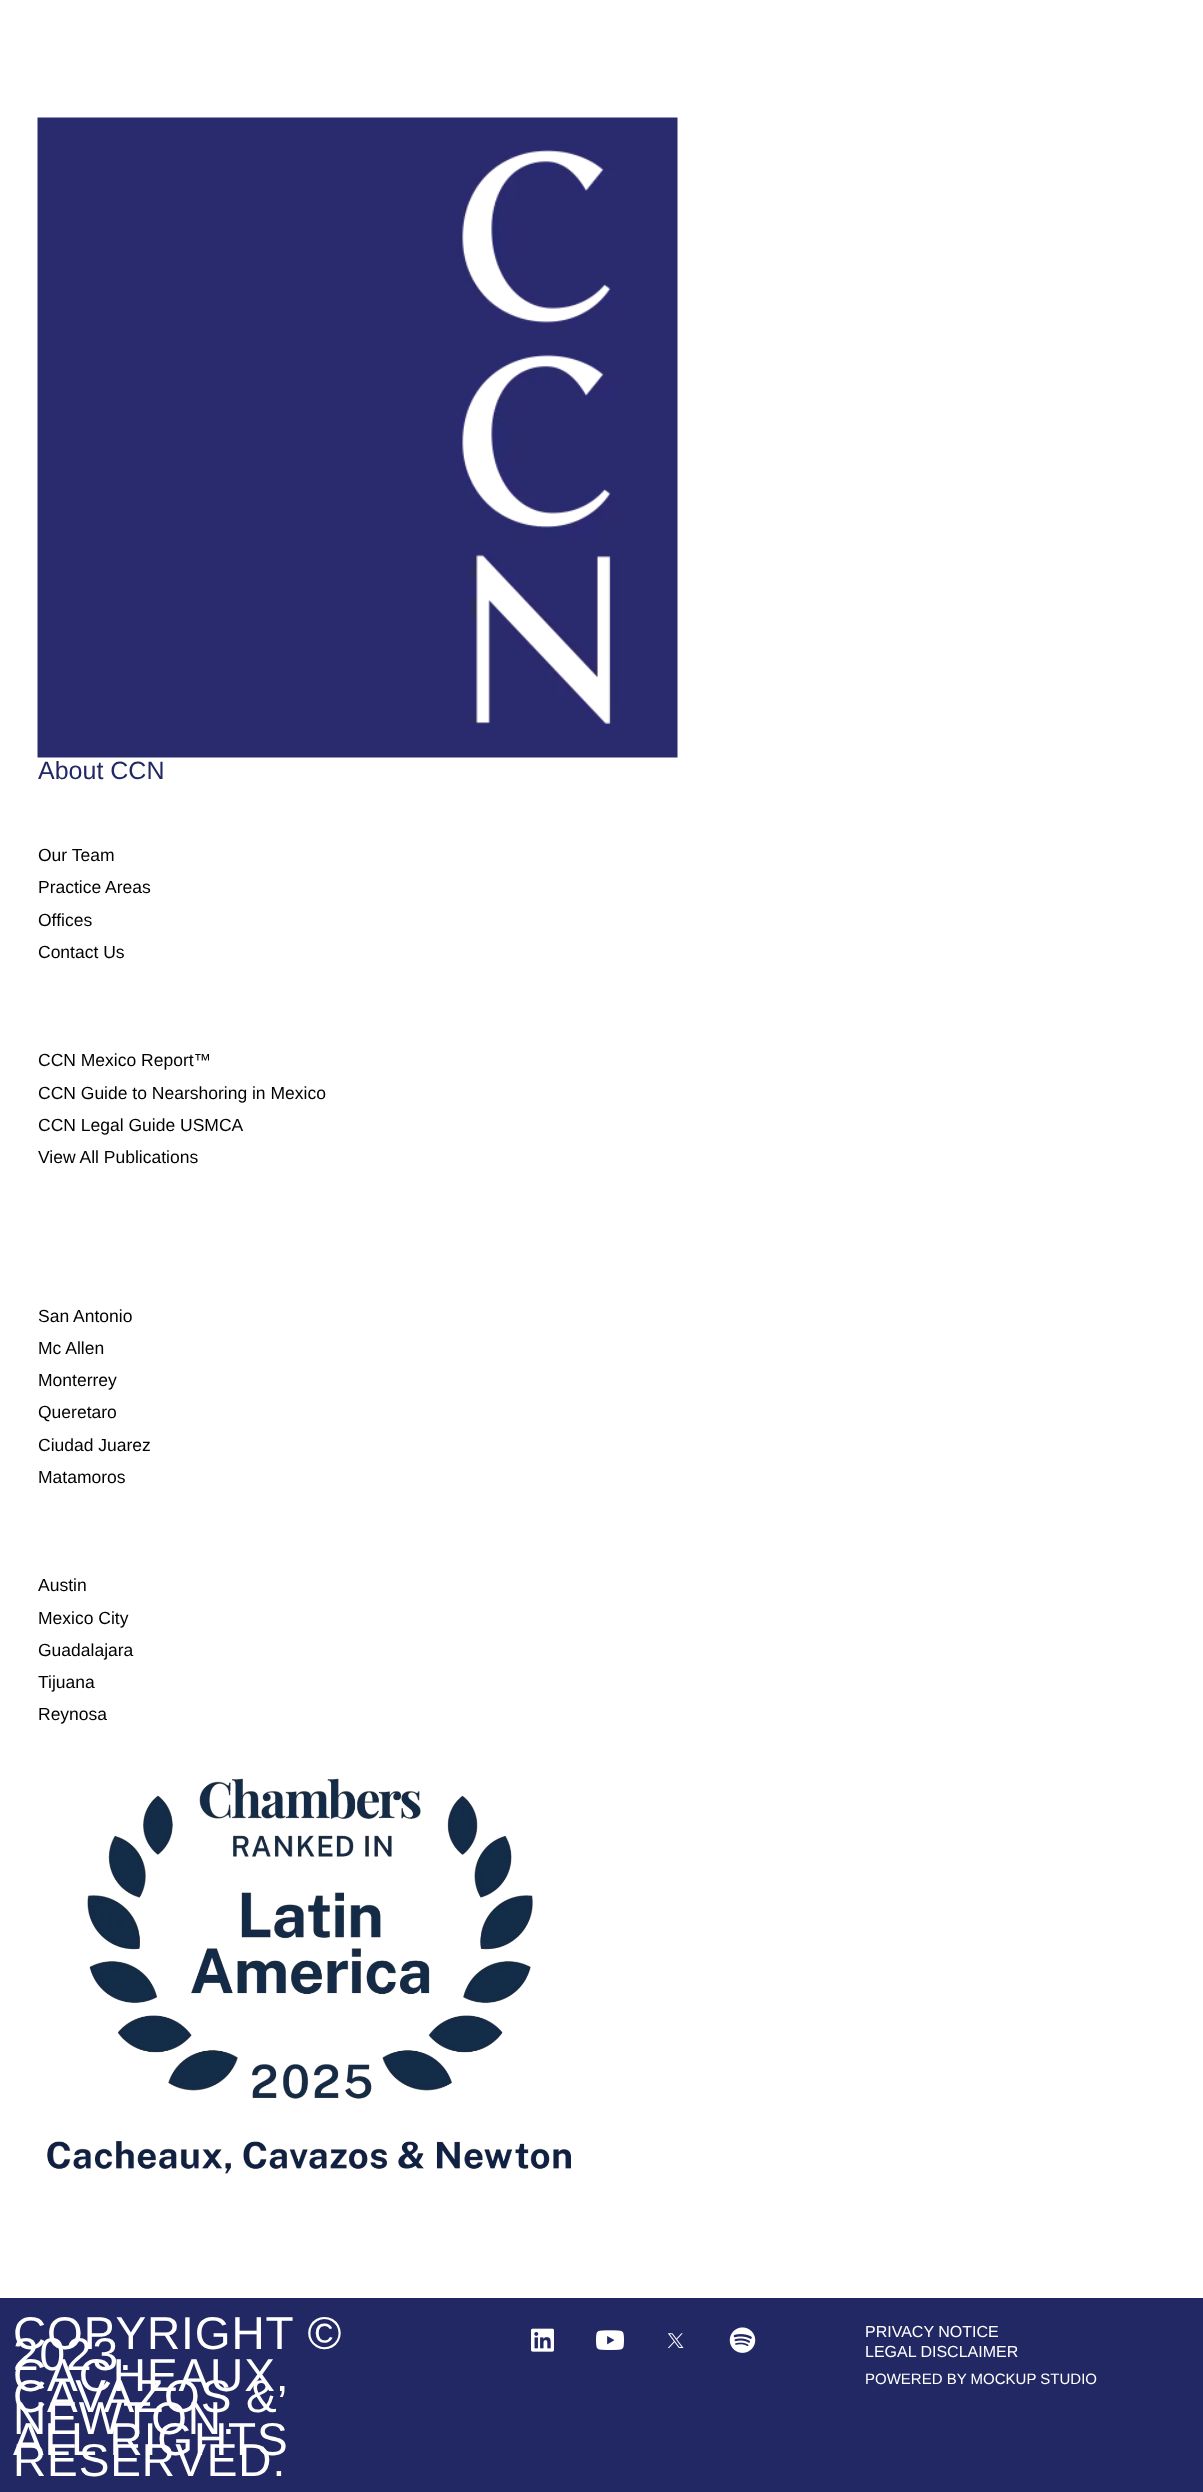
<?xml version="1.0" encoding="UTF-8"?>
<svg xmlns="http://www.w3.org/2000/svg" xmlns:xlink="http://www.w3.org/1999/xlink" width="1203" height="2492">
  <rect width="100%" height="100%" fill="#ffffff" />
  <image x="37" y="117" width="641" height="641" xlink:href="image1.png" />
  <image x="47" y="1778" width="524" height="396" xlink:href="image2.png" />
  <rect y="2298" width="1203" height="194" fill="#222863" />
  <image x="531" y="2328" width="23" height="24" xlink:href="image3.png" />
  <image x="596" y="2330" width="28" height="20" xlink:href="image4.png" />
  <image x="667" y="2333" width="17" height="15" xlink:href="image5.png" />
  <image x="729" y="2327" width="27" height="26" xlink:href="image6.png" />
  <text x="38" y="779" style="font-family: Liberation Sans; font-size: 25px; fill: #222863">About CCN</text>
  <text x="38" y="861" style="font-family: Liberation Sans; font-size: 17.5px; fill: #000000">Our Team</text>
  <text x="38" y="893" style="font-family: Liberation Sans; font-size: 17.5px; fill: #000000">Practice Areas</text>
  <text x="38" y="926" style="font-family: Liberation Sans; font-size: 17.5px; fill: #000000">Offices</text>
  <text x="38" y="958" style="font-family: Liberation Sans; font-size: 17.5px; fill: #000000">Contact Us</text>
  <text x="38" y="1066" style="font-family: Liberation Sans; font-size: 17.5px; fill: #000000">CCN Mexico Report™</text>
  <text x="38" y="1099" style="font-family: Liberation Sans; font-size: 17.5px; fill: #000000">CCN Guide to Nearshoring in Mexico</text>
  <text x="38" y="1131" style="font-family: Liberation Sans; font-size: 17.5px; fill: #000000">CCN Legal Guide USMCA</text>
  <text x="38" y="1163" style="font-family: Liberation Sans; font-size: 17.5px; fill: #000000">View All Publications</text>
  <text x="38" y="1322" style="font-family: Liberation Sans; font-size: 17.5px; fill: #000000">San Antonio</text>
  <text x="38" y="1354" style="font-family: Liberation Sans; font-size: 17.5px; fill: #000000">Mc Allen</text>
  <text x="38" y="1386" style="font-family: Liberation Sans; font-size: 17.5px; fill: #000000">Monterrey</text>
  <text x="38" y="1418" style="font-family: Liberation Sans; font-size: 17.5px; fill: #000000">Queretaro</text>
  <text x="38" y="1451" style="font-family: Liberation Sans; font-size: 17.5px; fill: #000000">Ciudad Juarez</text>
  <text x="38" y="1483" style="font-family: Liberation Sans; font-size: 17.5px; fill: #000000">Matamoros</text>
  <text x="38" y="1591" style="font-family: Liberation Sans; font-size: 17.5px; fill: #000000">Austin</text>
  <text x="38" y="1624" style="font-family: Liberation Sans; font-size: 17.5px; fill: #000000">Mexico City</text>
  <text x="38" y="1656" style="font-family: Liberation Sans; font-size: 17.5px; fill: #000000">Guadalajara</text>
  <text x="38" y="1688" style="font-family: Liberation Sans; font-size: 17.5px; fill: #000000">Tijuana</text>
  <text x="38" y="1720" style="font-family: Liberation Sans; font-size: 17.5px; fill: #000000">Reynosa</text>
  <text x="13" y="2349" style="font-family: Liberation Sans; font-size: 46px; letter-spacing: 0.9px; fill: #ffffff">COPYRIGHT ©</text>
  <text x="13" y="2370" style="font-family: Liberation Sans; font-size: 46px; letter-spacing: 0.9px; fill: #ffffff">2023.</text>
  <text x="13" y="2391" style="font-family: Liberation Sans; font-size: 46px; letter-spacing: 0.9px; fill: #ffffff">CACHEAUX,</text>
  <text x="13" y="2412" style="font-family: Liberation Sans; font-size: 46px; letter-spacing: 0.9px; fill: #ffffff">CAVAZOS &amp;</text>
  <text x="13" y="2434" style="font-family: Liberation Sans; font-size: 46px; letter-spacing: 0.9px; fill: #ffffff">NEWTON.</text>
  <text x="13" y="2455" style="font-family: Liberation Sans; font-size: 46px; letter-spacing: 0.9px; fill: #ffffff">ALL RIGHTS</text>
  <text x="13" y="2476" style="font-family: Liberation Sans; font-size: 46px; letter-spacing: 0.9px; fill: #ffffff">RESERVED.</text>
  <text x="865" y="2337" style="font-family: Liberation Sans; font-size: 16px; fill: #ffffff">PRIVACY NOTICE</text>
  <text x="865" y="2357" style="font-family: Liberation Sans; font-size: 16px; fill: #ffffff">LEGAL DISCLAIMER</text>
  <text x="865" y="2384" style="font-family: Liberation Sans; font-size: 15px; fill: #ffffff">POWERED BY MOCKUP STUDIO</text>
</svg>
